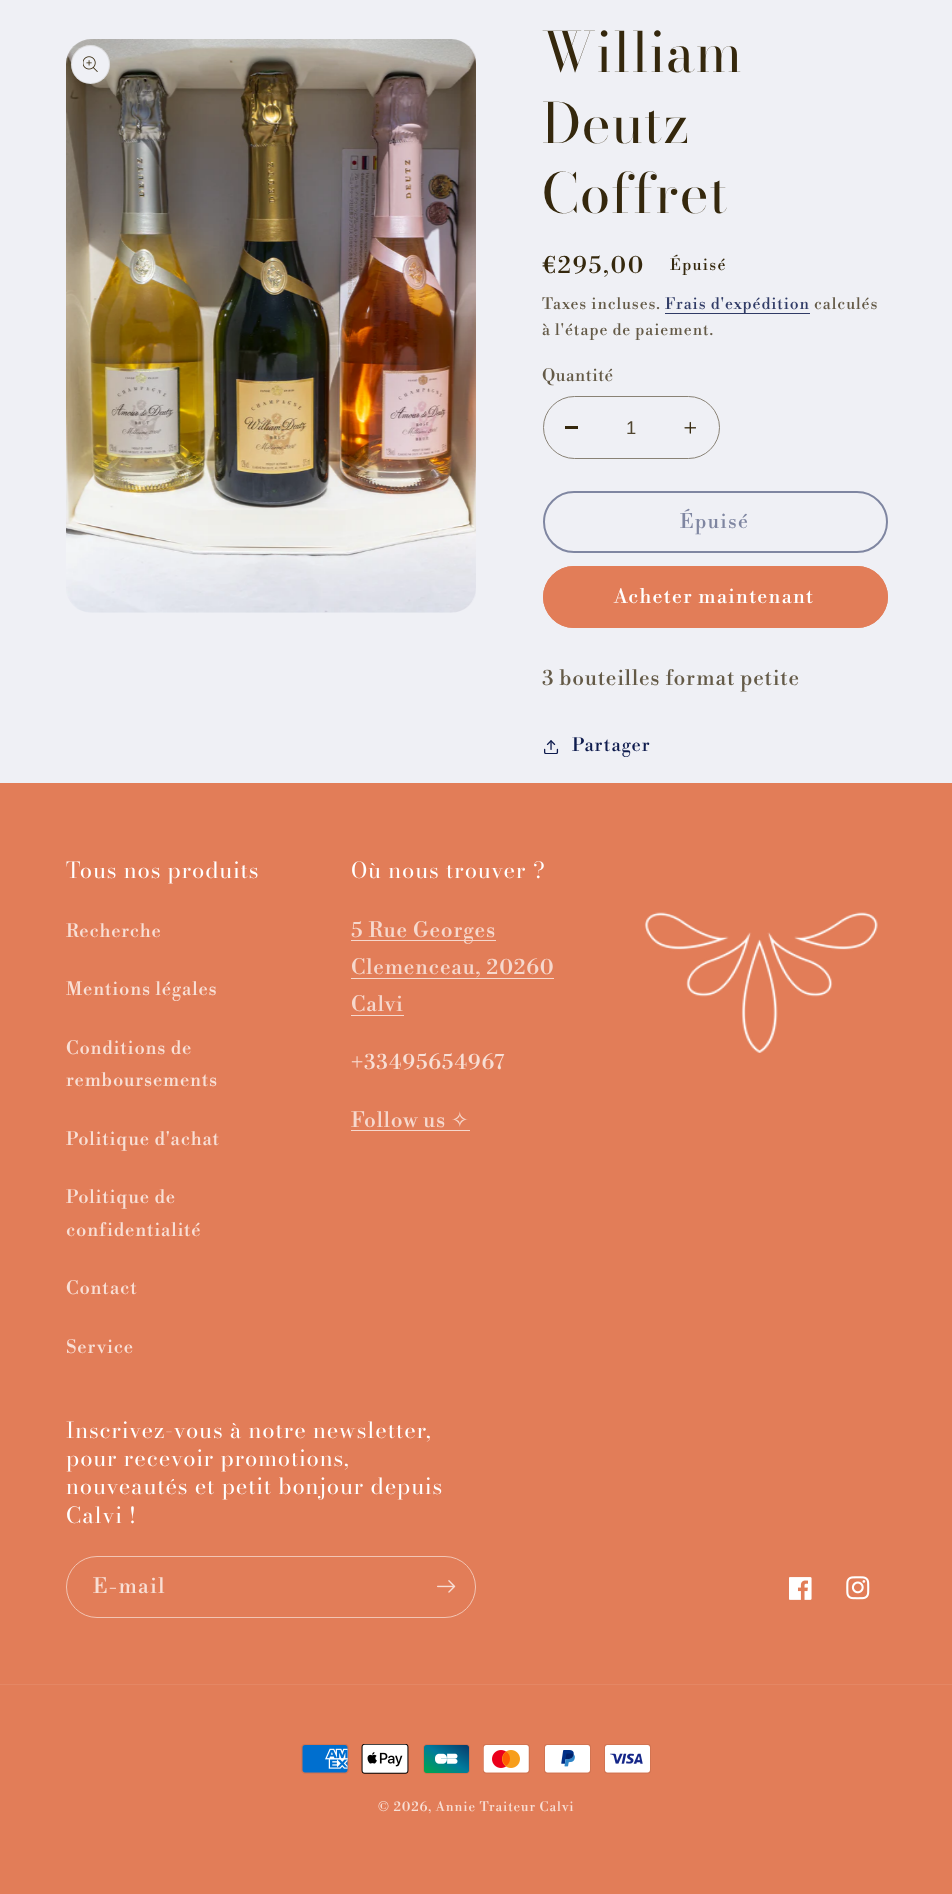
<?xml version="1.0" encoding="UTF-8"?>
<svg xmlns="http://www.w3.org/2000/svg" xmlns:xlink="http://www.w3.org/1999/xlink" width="952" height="1894">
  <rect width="100%" height="100%" fill="#eff0f5" />
  <image x="66" y="39" width="410" height="574" xlink:href="image1.png" />
  <circle cx="90.5" cy="64.5" r="19.5" fill="#eff0f5" />
  <circle cx="90.5" cy="64.5" r="19" fill="none" stroke="#35280d" stroke-opacity="0.1" />
  <image x="83" y="56" width="15" height="16" xlink:href="image2.png" />
  <rect x="665" y="313" width="145" height="1" fill="#303b66" />
  <rect x="565" y="426" width="13" height="3" fill="#35280d" />
  <image x="684" y="421" width="12" height="13" xlink:href="image3.png" />
  <rect x="543.5" y="396.5" width="176" height="62" rx="31" fill="none" stroke="#898275" />
  <rect x="544" y="492" width="343" height="60" rx="30" fill="none" stroke="#7f86a1" stroke-width="2" />
  <rect x="543" y="566" width="345" height="62" rx="31" fill="#e27d58" />
  <rect x="543.5" y="566.5" width="344" height="61" rx="30.5" fill="none" stroke="#e27d58" />
  <image x="544" y="740" width="15" height="14" xlink:href="image4.png" />
  <rect y="783" width="952" height="1111" fill="#e27d58" />
  <rect x="351" y="940" width="145" height="1" fill="#f6d8cd" />
  <rect x="351" y="978" width="203" height="1" fill="#f6d8cd" />
  <rect x="351" y="1015" width="53" height="1" fill="#f6d8cd" />
  <rect x="351" y="1130" width="119" height="1" fill="#f6d8cd" />
  <image x="644" y="912" width="234" height="141" xlink:href="image5.png" />
  <rect x="66.5" y="1556.5" width="409" height="61" rx="30.5" fill="none" stroke="#f2c5b4" />
  <image x="437" y="1580" width="19" height="13" xlink:href="image6.png" />
  <image x="789" y="1577" width="23" height="23" xlink:href="image7.png" />
  <image x="846" y="1576" width="24" height="24" xlink:href="image8.png" />
  <rect y="1684" width="952" height="1" fill="#e48765" />
  <image x="301" y="1744" width="48" height="30" xlink:href="image9.png" />
  <image x="361" y="1744" width="48" height="30" xlink:href="image10.png" />
  <image x="423" y="1744" width="47" height="30" xlink:href="image11.png" />
  <image x="483" y="1744" width="47" height="30" xlink:href="image12.png" />
  <image x="544" y="1744" width="47" height="30" xlink:href="image13.png" />
  <image x="604" y="1744" width="47" height="30" xlink:href="image14.png" />
  <text x="542" y="72" style="font-family: Bodoni Moda; font-size: 55px; letter-spacing: 0.85px; fill: #35280d">William</text>
  <text x="542" y="143" style="font-family: Bodoni Moda; font-size: 55px; letter-spacing: 0.85px; fill: #35280d">Deutz</text>
  <text x="542" y="213" style="font-family: Bodoni Moda; font-size: 55px; letter-spacing: 0.85px; fill: #35280d">Coffret</text>
  <text x="542" y="273" style="font-family: Libre Bodoni; font-size: 23.5px; letter-spacing: 1.75px; fill: #35280d">€295,00</text>
  <text x="670" y="270" style="font-family: Libre Bodoni; font-size: 15.75px; letter-spacing: 1.3px; fill: #35280d">Épuisé</text>
  <text x="542" y="309" style="font-family: Libre Bodoni; font-size: 15.75px; letter-spacing: 0.9px; fill: #645a47">Taxes incluses.</text>
  <text x="665" y="309" style="font-family: Libre Bodoni; font-size: 15.75px; letter-spacing: 0.9px; fill: #303b66">Frais d'expédition</text>
  <text x="814" y="309" style="font-family: Libre Bodoni; font-size: 15.75px; letter-spacing: 0.9px; fill: #645a47">calculés</text>
  <text x="542" y="335" style="font-family: Libre Bodoni; font-size: 15.75px; letter-spacing: 0.9px; fill: #645a47">à l'étape de paiement.</text>
  <text x="542" y="381" style="font-family: Libre Bodoni; font-size: 17px; letter-spacing: 0.5px; fill: #645a47">Quantité</text>
  <text x="626" y="434" style="font-family: Liberation Sans; font-size: 18.4px; fill: #514630">1</text>
  <text x="680" y="528" style="font-family: Libre Bodoni; font-size: 19.75px; letter-spacing: 1.3px; fill: #7f86a1">Épuisé</text>
  <text x="614" y="603" style="font-family: Libre Bodoni; font-size: 19.75px; letter-spacing: 1.3px; fill: #ffffff">Acheter maintenant</text>
  <text x="542" y="685" style="font-family: Libre Bodoni; font-size: 21px; letter-spacing: 0.8px; fill: #645a47">3 bouteilles format petite</text>
  <text x="572" y="751" style="font-family: Libre Bodoni; font-size: 18.4px; letter-spacing: 0.8px; fill: #0e1b4d">Partager</text>
  <text x="66" y="878" style="font-family: 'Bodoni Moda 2'; font-size: 22px; letter-spacing: 0.85px; fill: #ffffff">Tous nos produits</text>
  <text x="66" y="937" style="font-family: Libre Bodoni; font-size: 18.4px; letter-spacing: 0.8px; fill: #f8dfd5">Recherche</text>
  <text x="66" y="995" style="font-family: Libre Bodoni; font-size: 18.4px; letter-spacing: 0.8px; fill: #f8dfd5">Mentions légales</text>
  <text x="66" y="1054" style="font-family: Libre Bodoni; font-size: 18.4px; letter-spacing: 0.8px; fill: #f8dfd5">Conditions de</text>
  <text x="66" y="1086" style="font-family: Libre Bodoni; font-size: 18.4px; letter-spacing: 0.8px; fill: #f8dfd5">remboursements</text>
  <text x="66" y="1145" style="font-family: Libre Bodoni; font-size: 18.4px; letter-spacing: 0.8px; fill: #f8dfd5">Politique d'achat</text>
  <text x="66" y="1203" style="font-family: Libre Bodoni; font-size: 18.4px; letter-spacing: 0.8px; fill: #f8dfd5">Politique de</text>
  <text x="66" y="1236" style="font-family: Libre Bodoni; font-size: 18.4px; letter-spacing: 0.8px; fill: #f8dfd5">confidentialité</text>
  <text x="66" y="1294" style="font-family: Libre Bodoni; font-size: 18.4px; letter-spacing: 0.8px; fill: #f8dfd5">Contact</text>
  <text x="66" y="1353" style="font-family: Libre Bodoni; font-size: 18.4px; letter-spacing: 0.8px; fill: #f8dfd5">Service</text>
  <text x="351" y="878" style="font-family: 'Bodoni Moda 2'; font-size: 22px; letter-spacing: 0.85px; fill: #ffffff">Où nous trouver ?</text>
  <text x="351" y="937" style="font-family: Libre Bodoni; font-size: 21px; letter-spacing: 0.8px; fill: #f6d8cd">5 Rue Georges</text>
  <text x="351" y="974" style="font-family: Libre Bodoni; font-size: 21px; letter-spacing: 0.8px; fill: #f6d8cd">Clemenceau, 20260</text>
  <text x="351" y="1011" style="font-family: Libre Bodoni; font-size: 21px; letter-spacing: 0.8px; fill: #f6d8cd">Calvi</text>
  <text x="351" y="1069" style="font-family: Libre Bodoni; font-size: 21px; letter-spacing: 0.8px; fill: #f8dfd5">+33495654967</text>
  <text x="351" y="1127" style="font-family: Libre Bodoni; font-size: 21px; letter-spacing: 0.8px; fill: #f6d8cd">Follow us</text>
  <text x="451" y="1127" style="font-family: DejaVu Sans; font-size: 21px; letter-spacing: 0.8px; fill: #f6d8cd">✧</text>
  <text x="66" y="1438" style="font-family: 'Bodoni Moda 2'; font-size: 22px; letter-spacing: 0.85px; fill: #ffffff">Inscrivez-vous à notre newsletter,</text>
  <text x="66" y="1466" style="font-family: 'Bodoni Moda 2'; font-size: 22px; letter-spacing: 0.85px; fill: #ffffff">pour recevoir promotions,</text>
  <text x="66" y="1494" style="font-family: 'Bodoni Moda 2'; font-size: 22px; letter-spacing: 0.85px; fill: #ffffff">nouveautés et petit bonjour depuis</text>
  <text x="66" y="1523" style="font-family: 'Bodoni Moda 2'; font-size: 22px; letter-spacing: 0.85px; fill: #ffffff">Calvi !</text>
  <text x="93" y="1593" style="font-family: Libre Bodoni; font-size: 21px; letter-spacing: 1.3px; fill: #f8dfd5">E-mail</text>
  <text x="378" y="1811" style="font-family: Libre Bodoni; font-size: 13.1px; letter-spacing: 0.9px; fill: #f8dfd5">© 2026, Annie Traiteur Calvi</text>
</svg>
